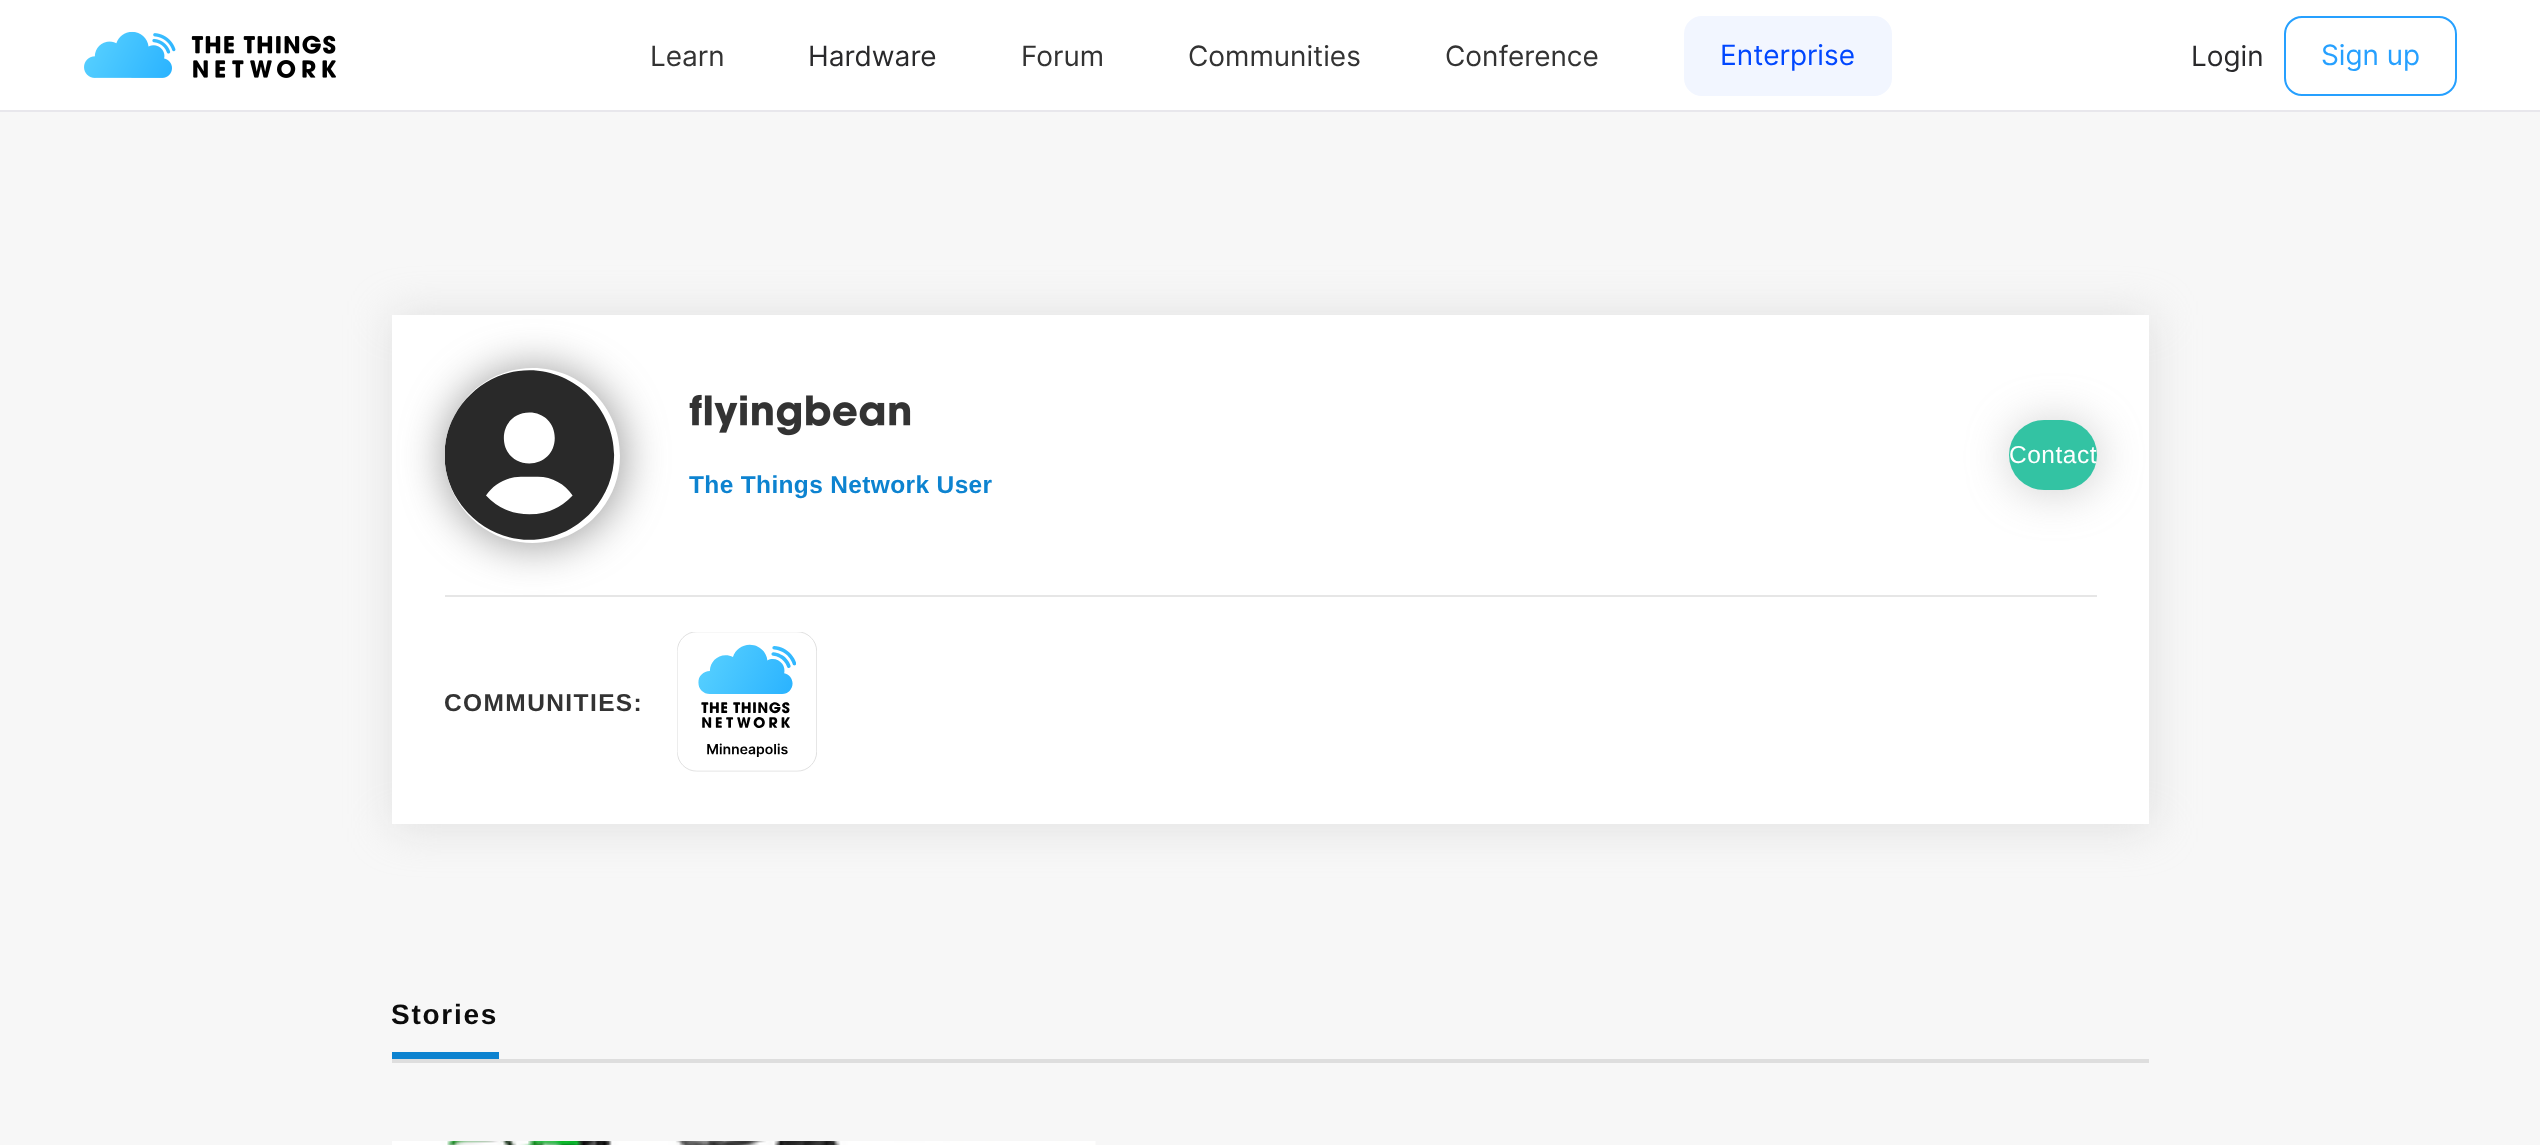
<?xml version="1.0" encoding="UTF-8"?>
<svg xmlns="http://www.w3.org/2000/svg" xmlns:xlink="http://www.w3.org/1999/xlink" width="2540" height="1145">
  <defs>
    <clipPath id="clip1"><path d="M 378 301 h 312 v 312 h -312 z m 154.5 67 c 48.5 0 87.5 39 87.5 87.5 c 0 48.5 -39 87.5 -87.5 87.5 c -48.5 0 -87.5 -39 -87.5 -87.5 c 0 -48.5 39 -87.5 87.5 -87.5 z" clip-rule="evenodd" /></clipPath>
  </defs>
  <rect width="100%" height="100%" fill="#f7f7f7" />
  <rect width="2540" height="110" fill="#ffffff" />
  <rect y="110" width="2540" height="2" fill="#e8e7ec" />
  <image x="84" y="31" width="252" height="47" xlink:href="image1.png" />
  <rect x="1685" y="17" width="206" height="78" rx="17" fill="#f2f6ff" stroke="#f2f6ff" stroke-width="2" />
  <rect x="2285" y="17" width="171" height="78" rx="17" fill="none" stroke="#26a0ff" stroke-width="2" />
  <rect x="392" y="315" width="1761" height="513" fill="#cccccc" fill-opacity="0.5" filter="blur(22px)" />
  <rect x="392" y="315" width="1757" height="509" fill="#ffffff" />
  <rect x="445" y="595" width="1652" height="2" fill="#e6e6e6" />
  <g clip-path="url(#clip1)">
    <rect x="445" y="368" width="178" height="178" rx="89" fill="#616161" fill-opacity="0.64" filter="blur(22px)" />
  </g>
  <image x="445" y="370" width="170" height="170" xlink:href="image2.png" />
  <rect x="2009" y="420" width="91" height="74" rx="37" fill="#909090" fill-opacity="0.4" filter="blur(22px)" />
  <rect x="2009" y="420" width="88" height="70" rx="35" fill="#33c3a3" />
  <image x="689" y="394" width="222" height="42" xlink:href="image3.png" />
  <image x="677" y="632" width="140" height="140" xlink:href="image4.png" />
  <rect x="392" y="1059" width="1757" height="4" fill="#dedede" />
  <rect x="392" y="1052" width="107" height="7" fill="#0d83d0" />
  <image x="392" y="1141" width="704" height="4" xlink:href="image5.png" />
  <text x="650" y="66" style="font-family: Inter; font-size: 28px; fill: #333333">Learn</text>
  <text x="808" y="66" style="font-family: Inter; font-size: 28px; fill: #29292b">Hardware</text>
  <text x="1021" y="66" style="font-family: Inter; font-size: 28px; fill: #333333">Forum</text>
  <text x="1188" y="66" style="font-family: Inter; font-size: 28px; fill: #333333">Communities</text>
  <text x="1445" y="66" style="font-family: Inter; font-size: 28px; fill: #333333">Conference</text>
  <text x="1720" y="65" style="font-family: Inter; font-size: 28px; fill: #0047ff">Enterprise</text>
  <text x="2191" y="66" style="font-family: Inter; font-size: 28px; fill: #29292b">Login</text>
  <text x="2321" y="65" style="font-family: Inter; font-size: 28px; fill: #26a0ff">Sign up</text>
  <text x="2009" y="463" style="font-family: Liberation Sans; font-size: 24.5px; letter-spacing: 0.5px; fill: #ffffff">Contact</text>
  <text x="689" y="493" style="font-family: Liberation Sans; font-size: 24.5px; font-weight: bold; letter-spacing: 0.35px; fill: #0d83d0">The Things Network User</text>
  <text x="444" y="711" style="font-family: Liberation Sans; font-size: 24.5px; font-weight: bold; letter-spacing: 1.4px; fill: #333333">COMMUNITIES:</text>
  <text x="391" y="1024" style="font-family: Liberation Sans; font-size: 28px; font-weight: bold; letter-spacing: 1.75px; fill: #0c0c0c">Stories</text>
</svg>
